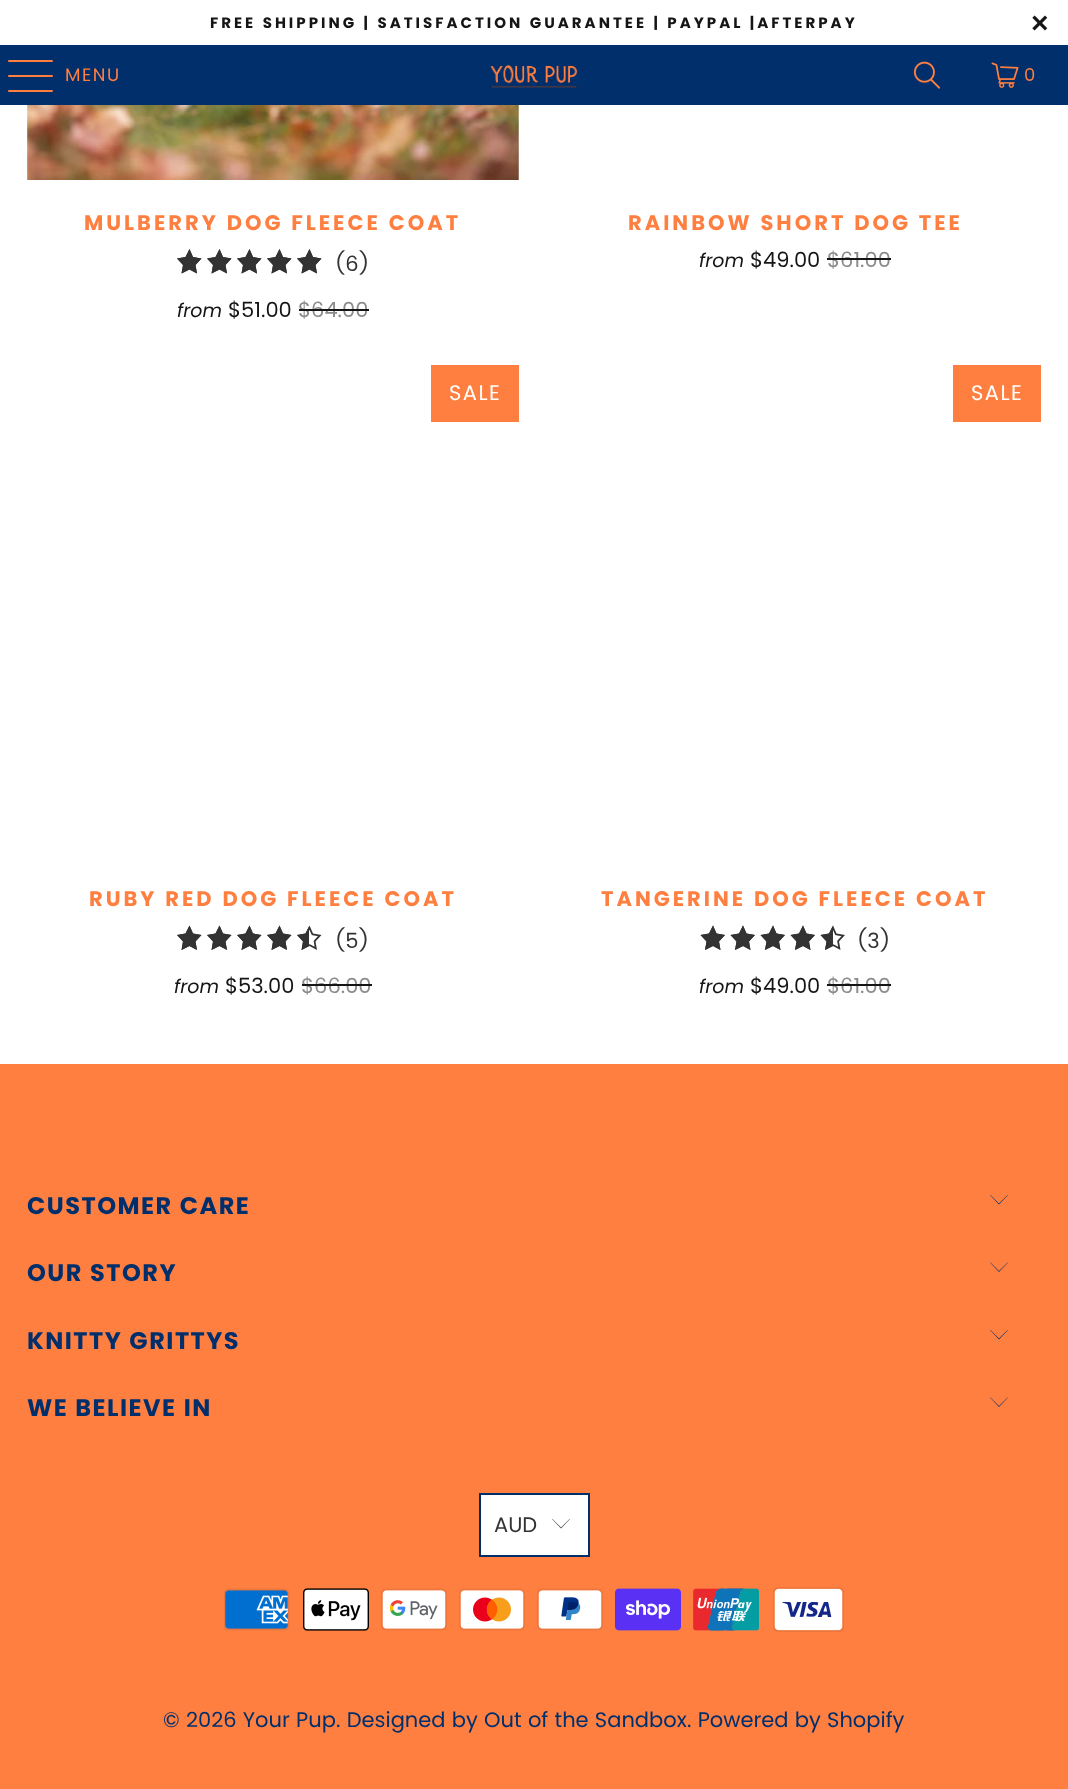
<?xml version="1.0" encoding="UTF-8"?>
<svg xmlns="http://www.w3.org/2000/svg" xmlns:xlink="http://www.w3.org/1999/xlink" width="1068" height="1789">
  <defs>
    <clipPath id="clip1"><path d="M 189.5 249 l 3.5 8 l 8.5 1.5 l -6 6.5 l 1.5 8.5 l -7.5 -4 l -8 4 l 1.5 -8.5 l -6 -6.5 l 8.5 -1.5 z" /></clipPath>
    <clipPath id="clip2"><path d="M 219.5 249 l 3.5 8 l 8.5 1.5 l -6 6.5 l 1.5 8.5 l -7.5 -4 l -8 4 l 1.5 -8.5 l -6 -6.5 l 8.5 -1.5 z" /></clipPath>
    <clipPath id="clip3"><path d="M 249.5 249 l 3.5 8 l 8.5 1.5 l -6 6.5 l 1.5 8.5 l -7.5 -4 l -8 4 l 1.5 -8.5 l -6 -6.5 l 8.5 -1.5 z" /></clipPath>
    <clipPath id="clip4"><path d="M 279.5 249 l 3.5 8 l 8.5 1.5 l -6 6.5 l 1.5 8.5 l -7.5 -4 l -8 4 l 1.5 -8.5 l -6 -6.5 l 8.5 -1.5 z" /></clipPath>
    <clipPath id="clip5"><path d="M 309.5 249 l 3.5 8 l 8.5 1.5 l -6 6.5 l 1.5 8.5 l -7.5 -4 l -8 4 l 1.5 -8.5 l -6 -6.5 l 8.5 -1.5 z" /></clipPath>
    <clipPath id="clip6"><path d="M 189.5 925.5 l 3.5 8 l 8.5 1.5 l -6 6.5 l 1.5 8.5 l -7.5 -4 l -8 4 l 1.5 -8.5 l -6 -6.5 l 8.5 -1.5 z" /></clipPath>
    <clipPath id="clip7"><path d="M 219.5 925.5 l 3.5 8 l 8.5 1.5 l -6 6.5 l 1.5 8.5 l -7.5 -4 l -8 4 l 1.5 -8.5 l -6 -6.5 l 8.5 -1.5 z" /></clipPath>
    <clipPath id="clip8"><path d="M 249.5 925.5 l 3.5 8 l 8.5 1.5 l -6 6.5 l 1.5 8.5 l -7.5 -4 l -8 4 l 1.5 -8.5 l -6 -6.5 l 8.5 -1.5 z" /></clipPath>
    <clipPath id="clip9"><path d="M 279.5 925.5 l 3.5 8 l 8.5 1.5 l -6 6.5 l 1.5 8.5 l -7.5 -4 l -8 4 l 1.5 -8.5 l -6 -6.5 l 8.5 -1.5 z" /></clipPath>
    <clipPath id="clip10"><path d="M 309.5 925.5 l 3.5 8 l 8.5 1.5 l -6 6.5 l 1.5 8.5 l -7.5 -4 l -8 4 l 1.5 -8.5 l -6 -6.5 l 8.5 -1.5 z" /></clipPath>
    <clipPath id="clip11"><path d="M 713 925.5 l 3.5 8 l 8.5 1.5 l -6 6.5 l 1.5 8.5 l -7.5 -4 l -8 4 l 1.5 -8.5 l -6 -6.5 l 8.5 -1.5 z" /></clipPath>
    <clipPath id="clip12"><path d="M 743 925.5 l 3.5 8 l 8.5 1.5 l -6 6.5 l 1.5 8.5 l -7.5 -4 l -8 4 l 1.5 -8.5 l -6 -6.5 l 8.5 -1.5 z" /></clipPath>
    <clipPath id="clip13"><path d="M 773 925.5 l 3.5 8 l 8.5 1.5 l -6 6.5 l 1.5 8.5 l -7.5 -4 l -8 4 l 1.5 -8.5 l -6 -6.5 l 8.5 -1.5 z" /></clipPath>
    <clipPath id="clip14"><path d="M 803 925.5 l 3.5 8 l 8.5 1.5 l -6 6.5 l 1.5 8.5 l -7.5 -4 l -8 4 l 1.5 -8.5 l -6 -6.5 l 8.5 -1.5 z" /></clipPath>
    <clipPath id="clip15"><path d="M 833 925.5 l 3.5 8 l 8.5 1.5 l -6 6.5 l 1.5 8.5 l -7.5 -4 l -8 4 l 1.5 -8.5 l -6 -6.5 l 8.5 -1.5 z" /></clipPath>
  </defs>
  <rect width="100%" height="100%" fill="#ffffff" />
  <rect y="45" width="1068" height="60" fill="#002f6c" />
  <rect x="8" y="60" width="45" height="2" rx="1" fill="#ff7f41" />
  <rect x="8" y="75" width="45" height="2" rx="1" fill="#ff7f41" />
  <rect x="8" y="90" width="45" height="2" rx="1" fill="#ff7f41" />
  <image x="490" y="65" width="88" height="23" xlink:href="image1.png" />
  <image x="913" y="61" width="28" height="28" xlink:href="image2.png" />
  <image x="991" y="62" width="28" height="26" xlink:href="image3.png" />
  <image x="27" y="105" width="492" height="75" xlink:href="image4.png" />
  <path d="M 189.5 249 l -4 8 l -8.5 1.5 l 6 6.5 l -1.5 8.5 l 8 -4 l 7.5 4 l -1.5 -8.5 l 6 -6.5 l -8.5 -1.5 z" fill="#333333" />
  <g clip-path="url(#clip1)">
    <path d="M 189.5 249 l 3.5 8 l 8.5 1.5 l -6 6.5 l 1.5 8.5 l -7.5 -4 l -8 4 l 1.5 -8.5 l -6 -6.5 l 8.5 -1.5 z" fill="none" stroke="#333333" stroke-width="3.5" stroke-linecap="round" stroke-linejoin="round" />
  </g>
  <path d="M 219.5 249 l -4 8 l -8.5 1.5 l 6 6.5 l -1.5 8.5 l 8 -4 l 7.5 4 l -1.5 -8.5 l 6 -6.5 l -8.5 -1.5 z" fill="#333333" />
  <g clip-path="url(#clip2)">
    <path d="M 219.5 249 l 3.5 8 l 8.5 1.5 l -6 6.5 l 1.5 8.5 l -7.5 -4 l -8 4 l 1.5 -8.5 l -6 -6.5 l 8.5 -1.5 z" fill="none" stroke="#333333" stroke-width="3.5" stroke-linecap="round" stroke-linejoin="round" />
  </g>
  <path d="M 249.5 249 l -4 8 l -8.5 1.5 l 6 6.5 l -1.5 8.5 l 8 -4 l 7.5 4 l -1.5 -8.5 l 6 -6.5 l -8.5 -1.5 z" fill="#333333" />
  <g clip-path="url(#clip3)">
    <path d="M 249.5 249 l 3.5 8 l 8.5 1.5 l -6 6.5 l 1.5 8.5 l -7.5 -4 l -8 4 l 1.5 -8.5 l -6 -6.5 l 8.5 -1.5 z" fill="none" stroke="#333333" stroke-width="3.5" stroke-linecap="round" stroke-linejoin="round" />
  </g>
  <path d="M 279.5 249 l -4 8 l -8.5 1.5 l 6 6.5 l -1.5 8.5 l 8 -4 l 7.5 4 l -1.5 -8.5 l 6 -6.5 l -8.5 -1.5 z" fill="#333333" />
  <g clip-path="url(#clip4)">
    <path d="M 279.5 249 l 3.5 8 l 8.5 1.5 l -6 6.5 l 1.5 8.5 l -7.5 -4 l -8 4 l 1.5 -8.5 l -6 -6.5 l 8.5 -1.5 z" fill="none" stroke="#333333" stroke-width="3.5" stroke-linecap="round" stroke-linejoin="round" />
  </g>
  <path d="M 309.5 249 l -4 8 l -8.5 1.5 l 6 6.5 l -1.5 8.5 l 8 -4 l 7.5 4 l -1.5 -8.5 l 6 -6.5 l -8.5 -1.5 z" fill="#333333" />
  <g clip-path="url(#clip5)">
    <path d="M 309.5 249 l 3.5 8 l 8.5 1.5 l -6 6.5 l 1.5 8.5 l -7.5 -4 l -8 4 l 1.5 -8.5 l -6 -6.5 l 8.5 -1.5 z" fill="none" stroke="#333333" stroke-width="3.5" stroke-linecap="round" stroke-linejoin="round" />
  </g>
  <rect x="431" y="365" width="88" height="57" fill="#ff7f41" />
  <path d="M 189.5 925.5 l -4 8 l -8.5 1.5 l 6 6.5 l -1.5 8.5 l 8 -4 l 7.5 4 l -1.5 -8.5 l 6 -6.5 l -8.5 -1.5 z" fill="#333333" />
  <g clip-path="url(#clip6)">
    <path d="M 189.5 925.5 l 3.5 8 l 8.5 1.5 l -6 6.5 l 1.5 8.5 l -7.5 -4 l -8 4 l 1.5 -8.5 l -6 -6.5 l 8.5 -1.5 z" fill="none" stroke="#333333" stroke-width="3.5" stroke-linecap="round" stroke-linejoin="round" />
  </g>
  <path d="M 219.5 925.5 l -4 8 l -8.5 1.5 l 6 6.5 l -1.5 8.5 l 8 -4 l 7.5 4 l -1.5 -8.5 l 6 -6.5 l -8.5 -1.5 z" fill="#333333" />
  <g clip-path="url(#clip7)">
    <path d="M 219.5 925.5 l 3.5 8 l 8.5 1.5 l -6 6.5 l 1.5 8.5 l -7.5 -4 l -8 4 l 1.5 -8.5 l -6 -6.5 l 8.5 -1.5 z" fill="none" stroke="#333333" stroke-width="3.5" stroke-linecap="round" stroke-linejoin="round" />
  </g>
  <path d="M 249.5 925.5 l -4 8 l -8.5 1.5 l 6 6.5 l -1.5 8.5 l 8 -4 l 7.5 4 l -1.5 -8.5 l 6 -6.5 l -8.5 -1.5 z" fill="#333333" />
  <g clip-path="url(#clip8)">
    <path d="M 249.5 925.5 l 3.5 8 l 8.5 1.5 l -6 6.5 l 1.5 8.5 l -7.5 -4 l -8 4 l 1.5 -8.5 l -6 -6.5 l 8.5 -1.5 z" fill="none" stroke="#333333" stroke-width="3.5" stroke-linecap="round" stroke-linejoin="round" />
  </g>
  <path d="M 279.5 925.5 l -4 8 l -8.5 1.5 l 6 6.5 l -1.5 8.5 l 8 -4 l 7.5 4 l -1.5 -8.5 l 6 -6.5 l -8.5 -1.5 z" fill="#333333" />
  <g clip-path="url(#clip9)">
    <path d="M 279.5 925.5 l 3.5 8 l 8.5 1.5 l -6 6.5 l 1.5 8.5 l -7.5 -4 l -8 4 l 1.5 -8.5 l -6 -6.5 l 8.5 -1.5 z" fill="none" stroke="#333333" stroke-width="3.5" stroke-linecap="round" stroke-linejoin="round" />
  </g>
  <path d="M 309 926.5 v 19.5 l -7.5 4 l 1.5 -8.5 l -6 -6.5 l 8.5 -1.5 z" fill="#333333" />
  <g clip-path="url(#clip10)">
    <path d="M 309.5 925.5 l 3.5 8 l 8.5 1.5 l -6 6.5 l 1.5 8.5 l -7.5 -4 l -8 4 l 1.5 -8.5 l -6 -6.5 l 8.5 -1.5 z" fill="none" stroke="#333333" stroke-width="3.5" stroke-linecap="round" stroke-linejoin="round" />
  </g>
  <rect x="953" y="365" width="88" height="57" fill="#ff7f41" />
  <path d="M 713 925.5 l -4 8 l -8.5 1.5 l 6 6.5 l -1.5 8.5 l 8 -4 l 7.5 4 l -1.5 -8.5 l 6 -6.5 l -8.5 -1.5 z" fill="#333333" />
  <g clip-path="url(#clip11)">
    <path d="M 713 925.5 l 3.5 8 l 8.5 1.5 l -6 6.5 l 1.5 8.5 l -7.5 -4 l -8 4 l 1.5 -8.5 l -6 -6.5 l 8.5 -1.5 z" fill="none" stroke="#333333" stroke-width="3.5" stroke-linecap="round" stroke-linejoin="round" />
  </g>
  <path d="M 743 925.5 l -4 8 l -8.5 1.5 l 6 6.5 l -1.5 8.5 l 8 -4 l 7.5 4 l -1.5 -8.5 l 6 -6.5 l -8.5 -1.5 z" fill="#333333" />
  <g clip-path="url(#clip12)">
    <path d="M 743 925.5 l 3.5 8 l 8.5 1.5 l -6 6.5 l 1.5 8.5 l -7.5 -4 l -8 4 l 1.5 -8.5 l -6 -6.5 l 8.5 -1.5 z" fill="none" stroke="#333333" stroke-width="3.5" stroke-linecap="round" stroke-linejoin="round" />
  </g>
  <path d="M 773 925.5 l -4 8 l -8.5 1.5 l 6 6.5 l -1.5 8.5 l 8 -4 l 7.5 4 l -1.5 -8.5 l 6 -6.5 l -8.5 -1.5 z" fill="#333333" />
  <g clip-path="url(#clip13)">
    <path d="M 773 925.5 l 3.5 8 l 8.5 1.5 l -6 6.5 l 1.5 8.5 l -7.5 -4 l -8 4 l 1.5 -8.5 l -6 -6.5 l 8.5 -1.5 z" fill="none" stroke="#333333" stroke-width="3.5" stroke-linecap="round" stroke-linejoin="round" />
  </g>
  <path d="M 803 925.5 l -4 8 l -8.5 1.5 l 6 6.5 l -1.5 8.5 l 8 -4 l 7.5 4 l -1.5 -8.5 l 6 -6.5 l -8.5 -1.5 z" fill="#333333" />
  <g clip-path="url(#clip14)">
    <path d="M 803 925.5 l 3.5 8 l 8.5 1.5 l -6 6.5 l 1.5 8.5 l -7.5 -4 l -8 4 l 1.5 -8.5 l -6 -6.5 l 8.5 -1.5 z" fill="none" stroke="#333333" stroke-width="3.5" stroke-linecap="round" stroke-linejoin="round" />
  </g>
  <path d="M 833 925.5 v 20.5 l -8 4 l 1.5 -8.5 l -6 -6.5 l 8.5 -1.5 z" fill="#333333" />
  <g clip-path="url(#clip15)">
    <path d="M 833 925.5 l 3.5 8 l 8.5 1.5 l -6 6.5 l 1.5 8.5 l -7.5 -4 l -8 4 l 1.5 -8.5 l -6 -6.5 l 8.5 -1.5 z" fill="none" stroke="#333333" stroke-width="3.5" stroke-linecap="round" stroke-linejoin="round" />
  </g>
  <rect y="1064" width="1068" height="725" fill="#ff7f41" />
  <path d="M 999 1204.5 l -9 -9.5 h 0.5 l 8.5 8.5 l 8.5 -8.5 h 0.5 z" fill="#002f6c" />
  <path d="M 999 1272 l -9 -9.5 h 0.5 l 8.5 8.5 l 8.5 -8.5 h 0.5 z" fill="#002f6c" />
  <path d="M 999 1339.5 l -9 -9.5 h 0.5 l 8.5 8.5 l 8.5 -8.5 h 0.5 z" fill="#002f6c" />
  <path d="M 999 1407 l -9 -9.5 h 0.5 l 8.5 8.5 l 8.5 -8.5 h 0.5 z" fill="#002f6c" />
  <rect x="480" y="1494" width="109" height="62" fill="#ffffff" stroke="#002f6c" stroke-width="2" />
  <path d="M 561 1528.5 l -9 -9.5 h 0.5 l 8.5 8.5 l 8.5 -8.5 h 0.5 z" fill="#333333" />
  <image x="224" y="1588" width="66" height="43" xlink:href="image5.png" />
  <image x="303" y="1588" width="66" height="43" xlink:href="image6.png" />
  <image x="381" y="1588" width="66" height="43" xlink:href="image7.png" />
  <image x="459" y="1588" width="66" height="43" xlink:href="image8.png" />
  <image x="537" y="1588" width="66" height="43" xlink:href="image9.png" />
  <image x="615" y="1588" width="66" height="43" xlink:href="image10.png" />
  <image x="693" y="1588" width="66" height="43" xlink:href="image11.png" />
  <image x="773" y="1587" width="71" height="45" xlink:href="image12.png" />
  <text x="210" y="28" style="font-family: Poppins; font-size: 15px; font-weight: bold; letter-spacing: 3px; fill: #151515">FREE SHIPPING | SATISFACTION GUARANTEE | PAYPAL |AFTERPAY</text>
  <text x="1031" y="33" style="font-family: Liberation Sans; font-size: 30px; font-weight: bold; letter-spacing: 3px; fill: #151515">×</text>
  <text x="65" y="81" style="font-family: Poppins; font-size: 18px; letter-spacing: 1.5px; fill: #ff7f41">MENU</text>
  <text x="1024" y="81" style="font-family: Poppins; font-size: 18px; letter-spacing: 1.5px; fill: #ff7f41">0</text>
  <text x="84" y="230" style="font-family: Poppins; font-size: 21px; font-weight: bold; letter-spacing: 3px; fill: #ff7f41">MULBERRY DOG FLEECE COAT</text>
  <text x="335" y="271" style="font-family: Poppins; font-size: 21px; fill: #333333">(6)</text>
  <text x="177" y="317" style="font-family: Poppins; font-size: 19px; font-style: italic; fill: #151515">from</text>
  <text x="228" y="317" style="font-family: Poppins; font-size: 21px; fill: #151515">$51.00</text>
  <text x="298" y="317" style="font-family: Poppins; font-size: 21px; fill: #8c8b8b">$64.00</text>
  <rect x="299" y="309" width="70" height="2" fill="#151515" />
  <text x="628" y="230" style="font-family: Poppins; font-size: 21px; font-weight: bold; letter-spacing: 3px; fill: #ff7f41">RAINBOW SHORT DOG TEE</text>
  <text x="699" y="267" style="font-family: Poppins; font-size: 19px; font-style: italic; fill: #151515">from</text>
  <text x="750" y="267" style="font-family: Poppins; font-size: 21px; fill: #151515">$49.00</text>
  <text x="827" y="267" style="font-family: Poppins; font-size: 21px; fill: #8c8b8b">$61.00</text>
  <rect x="827" y="258" width="64" height="2" fill="#151515" />
  <text x="449" y="400" style="font-family: Poppins; font-size: 21px; letter-spacing: 1.5px; fill: #ffffff">SALE</text>
  <text x="89" y="906" style="font-family: Poppins; font-size: 21px; font-weight: bold; letter-spacing: 3px; fill: #ff7f41">RUBY RED DOG FLEECE COAT</text>
  <text x="335" y="948" style="font-family: Poppins; font-size: 21px; fill: #333333">(5)</text>
  <text x="174" y="993" style="font-family: Poppins; font-size: 19px; font-style: italic; fill: #151515">from</text>
  <text x="225" y="993" style="font-family: Poppins; font-size: 21px; fill: #151515">$53.00</text>
  <text x="301" y="993" style="font-family: Poppins; font-size: 21px; fill: #8c8b8b">$66.00</text>
  <rect x="302" y="984" width="70" height="2" fill="#151515" />
  <text x="971" y="400" style="font-family: Poppins; font-size: 21px; letter-spacing: 1.5px; fill: #ffffff">SALE</text>
  <text x="601" y="906" style="font-family: Poppins; font-size: 21px; font-weight: bold; letter-spacing: 3px; fill: #ff7f41">TANGERINE DOG FLEECE COAT</text>
  <text x="857" y="948" style="font-family: Poppins; font-size: 21px; fill: #333333">(3)</text>
  <text x="699" y="993" style="font-family: Poppins; font-size: 19px; font-style: italic; fill: #151515">from</text>
  <text x="750" y="993" style="font-family: Poppins; font-size: 21px; fill: #151515">$49.00</text>
  <text x="827" y="993" style="font-family: Poppins; font-size: 21px; fill: #8c8b8b">$61.00</text>
  <rect x="827" y="984" width="64" height="2" fill="#151515" />
  <text x="27" y="1214" style="font-family: Poppins; font-size: 24px; font-weight: bold; letter-spacing: 1.5px; fill: #002f6c">CUSTOMER CARE</text>
  <text x="27" y="1281" style="font-family: Poppins; font-size: 24px; font-weight: bold; letter-spacing: 1.5px; fill: #002f6c">OUR STORY</text>
  <text x="27" y="1349" style="font-family: Poppins; font-size: 24px; font-weight: bold; letter-spacing: 1.5px; fill: #002f6c">KNITTY GRITTYS</text>
  <text x="27" y="1416" style="font-family: Poppins; font-size: 24px; font-weight: bold; letter-spacing: 1.5px; fill: #002f6c">WE BELIEVE IN</text>
  <text x="494" y="1532" style="font-family: Poppins; font-size: 21px; fill: #333333">AUD</text>
  <text x="163" y="1727" style="font-family: Poppins; font-size: 21px; fill: #002f6c">© 2026 Your Pup</text>
  <text x="336" y="1727" style="font-family: Poppins; font-size: 21px; fill: #002f6c">. Designed by Out of the Sandbox</text>
  <text x="687" y="1727" style="font-family: Poppins; font-size: 21px; fill: #002f6c">. Powered by Shopify</text>
</svg>
